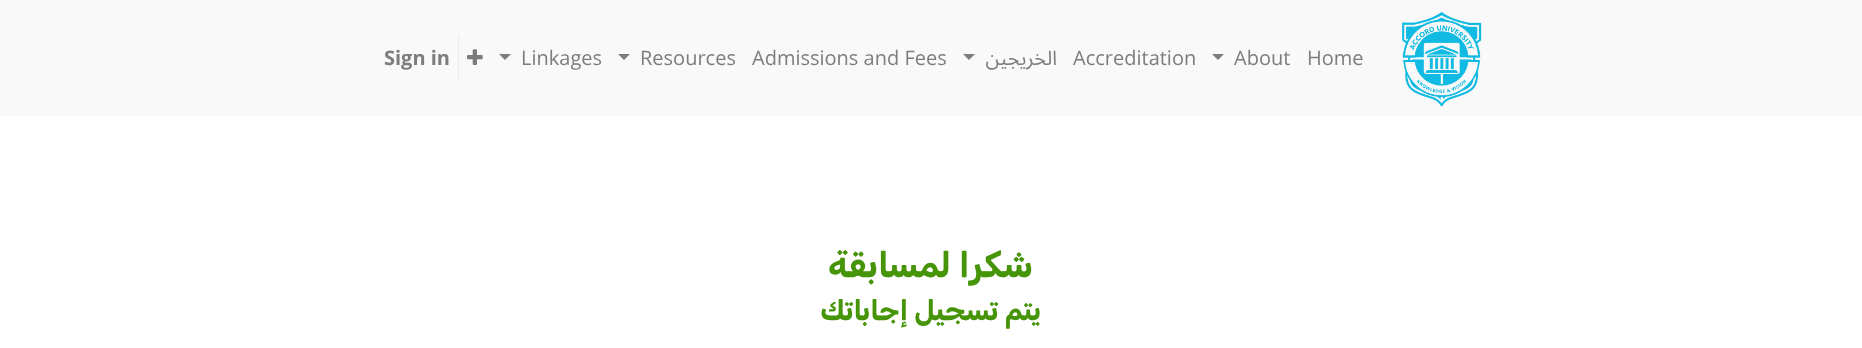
<?xml version="1.0" encoding="UTF-8"?>
<svg xmlns="http://www.w3.org/2000/svg" xmlns:xlink="http://www.w3.org/1999/xlink" width="1862" height="348">
  <rect width="100%" height="100%" fill="#ffffff" />
  <rect width="1862" height="116" fill="#f9f9f9" />
  <rect x="458" y="35" width="1" height="46" fill="#e9ecef" />
  <image x="467" y="49" width="16" height="16" xlink:href="image1.png" />
  <path d="M 499 54 h 12 l -6 6 z" fill="#7d7d7d" />
  <path d="M 618 54 h 12 l -6 6 z" fill="#7d7d7d" />
  <path d="M 963 54 h 12 l -6 6 z" fill="#7d7d7d" />
  <path d="M 1212 54 h 12 l -6 6 z" fill="#7d7d7d" />
  <image x="1402" y="12" width="80" height="95" xlink:href="image2.png" />
  <text x="384" y="65" style="font-family: Open Sans; font-size: 20px; font-weight: bold; fill: #7d7d7d">Sign in</text>
  <text x="521" y="65" style="font-family: Open Sans; font-size: 20px; fill: #7d7d7d">Linkages</text>
  <text x="640" y="65" style="font-family: Open Sans; font-size: 20px; fill: #7d7d7d">Resources</text>
  <text x="752" y="65" style="font-family: Open Sans; font-size: 20px; fill: #7d7d7d">Admissions and Fees</text>
  <text x="1057" y="65" style="font-family: Noto Sans Arabic; font-size: 20px; direction: rtl; fill: #7d7d7d">الخريجين</text>
  <text x="1073" y="65" style="font-family: Open Sans; font-size: 20px; fill: #7d7d7d">Accreditation</text>
  <text x="1234" y="65" style="font-family: Open Sans; font-size: 20px; fill: #7d7d7d">About</text>
  <text x="1307" y="65" style="font-family: Open Sans; font-size: 20px; fill: #7d7d7d">Home</text>
  <text x="1033" y="277" style="font-family: Rubik; font-size: 35px; font-weight: bold; direction: rtl; fill: #469408">شكرا لمسابقة</text>
  <text x="1041" y="320" style="font-family: Rubik; font-size: 28px; font-weight: bold; direction: rtl; fill: #469408">يتم تسجيل إجاباتك</text>
</svg>
